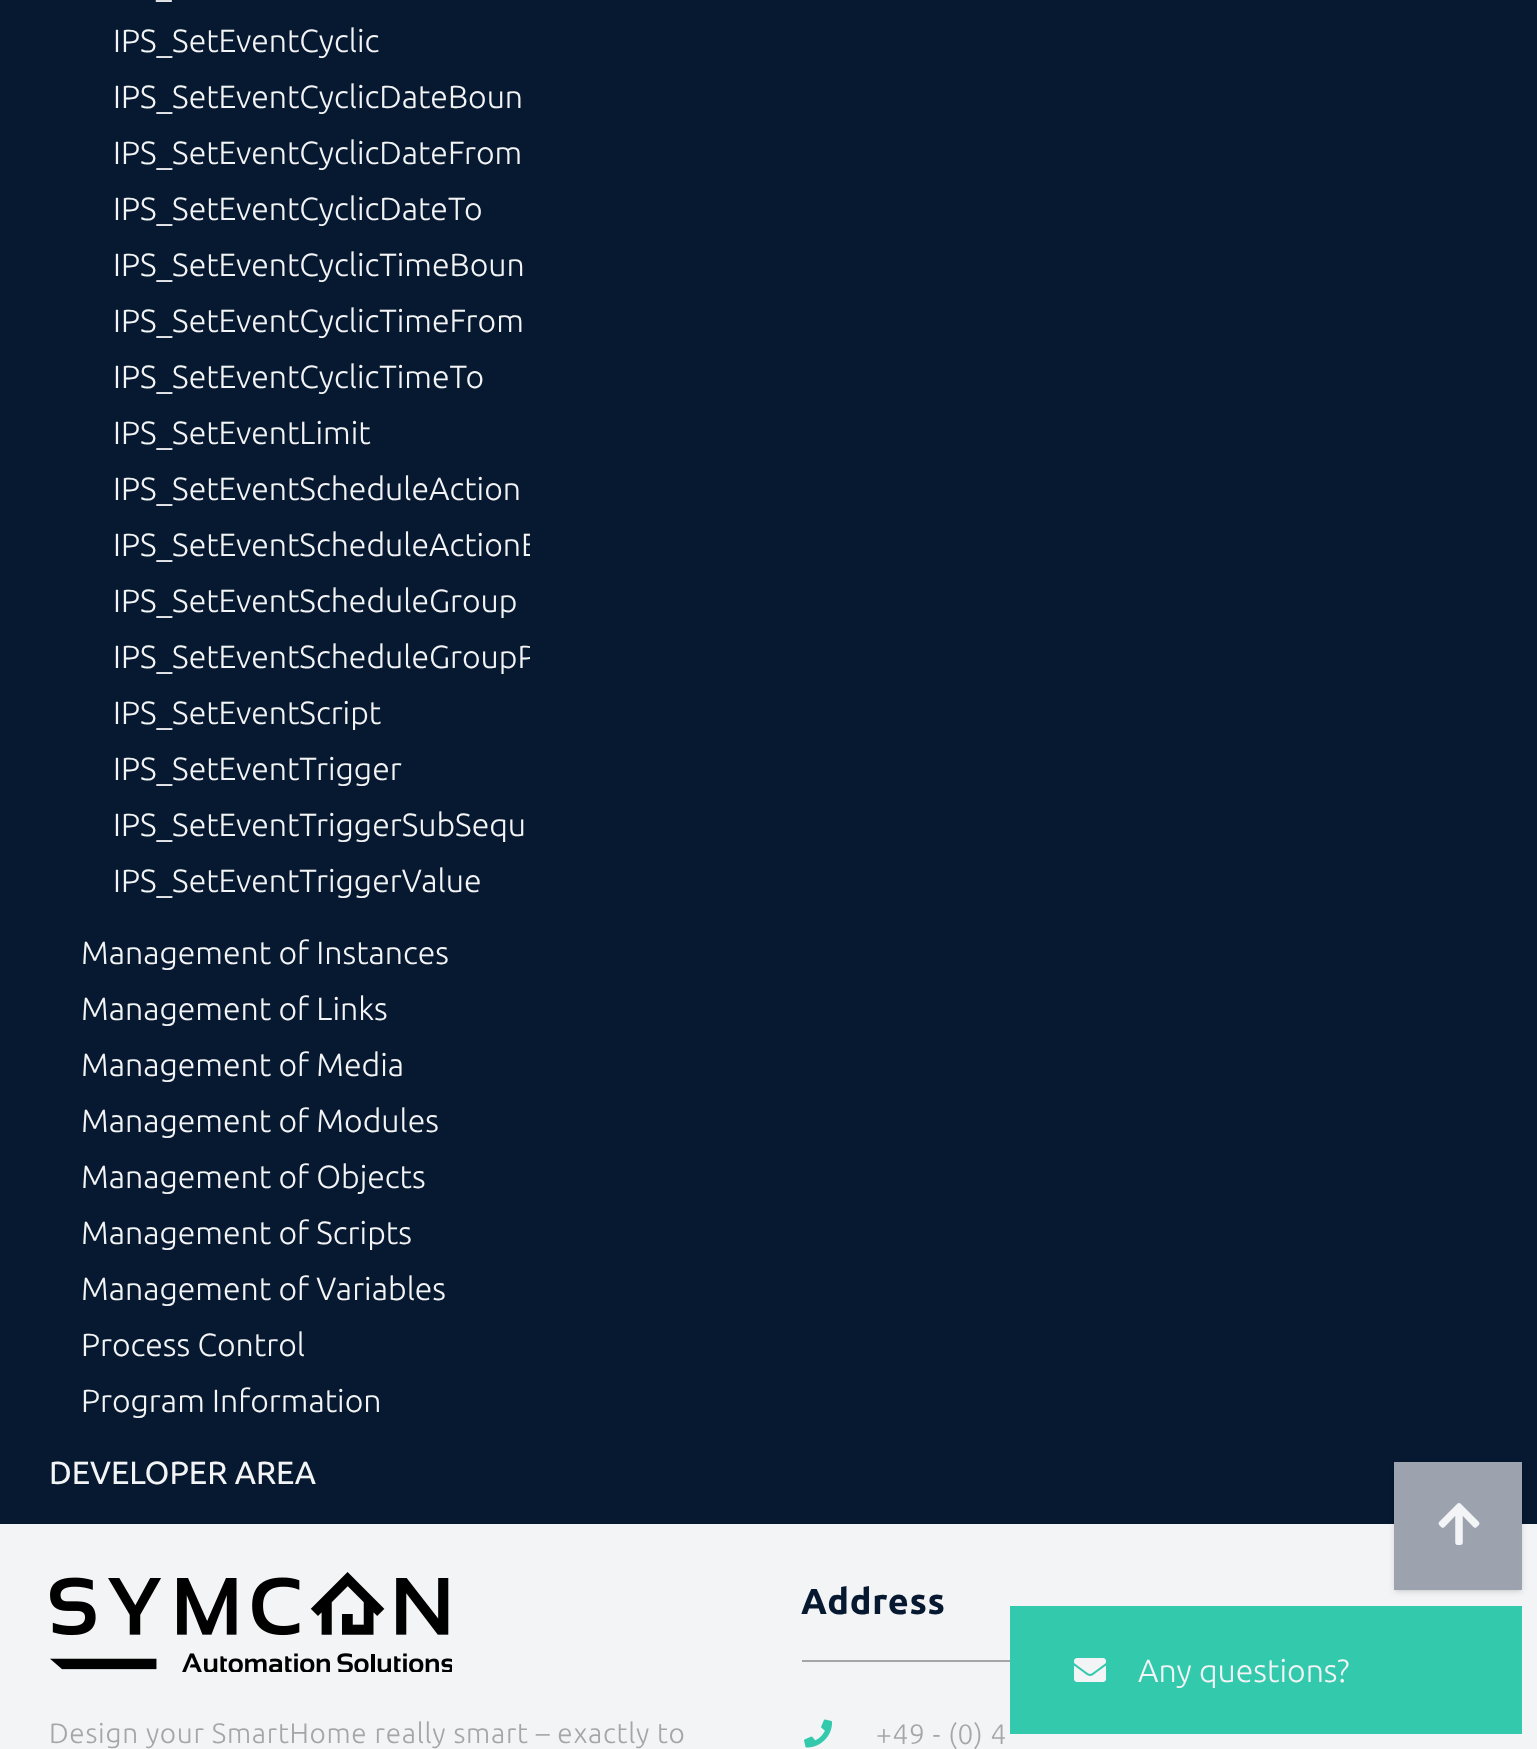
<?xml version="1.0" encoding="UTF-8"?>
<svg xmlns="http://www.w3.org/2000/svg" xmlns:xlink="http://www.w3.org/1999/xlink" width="1537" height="1749">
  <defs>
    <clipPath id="clip1"><rect x="82" width="448" height="916" /></clipPath>
  </defs>
  <rect width="100%" height="100%" fill="#071930" />
  <rect y="1524" width="1537" height="225" fill="#f3f4f5" />
  <rect x="1396" y="1466" width="124" height="124" fill="#000000" fill-opacity="0.1" filter="blur(2px)" />
  <rect x="1394" y="1464" width="128" height="128" fill="#000000" fill-opacity="0.1" filter="blur(3px)" />
  <rect x="1394" y="1462" width="128" height="128" fill="#9ca3af" />
  <image x="1438" y="1503" width="42" height="42" xlink:href="image1.png" />
  <image x="50" y="1572" width="402" height="100" xlink:href="image2.png" />
  <rect x="802" y="1660" width="208" height="2" fill="#a6a6a6" />
  <image x="804" y="1719" width="29" height="29" xlink:href="image3.png" />
  <rect x="1010" y="1606" width="512" height="128" fill="#32c9ac" />
  <image x="1074" y="1658" width="32" height="24" xlink:href="image4.png" />
  <text x="156" y="-4" style="font-family: Ubuntu; font-size: 32px; font-weight: 300; fill: #f3f4f5">_</text>
  <text x="113" y="52" style="font-family: Ubuntu; font-size: 32px; font-weight: 300; fill: #f3f4f5">IPS_SetEventCyclic</text>
  <text x="113" y="108" style="font-family: Ubuntu; font-size: 32px; font-weight: 300; fill: #f3f4f5">IPS_SetEventCyclicDateBoun</text>
  <text x="113" y="164" style="font-family: Ubuntu; font-size: 32px; font-weight: 300; fill: #f3f4f5">IPS_SetEventCyclicDateFrom</text>
  <text x="113" y="220" style="font-family: Ubuntu; font-size: 32px; font-weight: 300; fill: #f3f4f5">IPS_SetEventCyclicDateTo</text>
  <text x="113" y="276" style="font-family: Ubuntu; font-size: 32px; font-weight: 300; fill: #f3f4f5">IPS_SetEventCyclicTimeBoun</text>
  <text x="113" y="332" style="font-family: Ubuntu; font-size: 32px; font-weight: 300; fill: #f3f4f5">IPS_SetEventCyclicTimeFrom</text>
  <text x="113" y="388" style="font-family: Ubuntu; font-size: 32px; font-weight: 300; fill: #f3f4f5">IPS_SetEventCyclicTimeTo</text>
  <text x="113" y="444" style="font-family: Ubuntu; font-size: 32px; font-weight: 300; fill: #f3f4f5">IPS_SetEventLimit</text>
  <text x="113" y="500" style="font-family: Ubuntu; font-size: 32px; font-weight: 300; fill: #f3f4f5">IPS_SetEventScheduleAction</text>
  <g clip-path="url(#clip1)">
    <text x="113" y="556" style="font-family: Ubuntu; font-size: 32px; font-weight: 300; fill: #f3f4f5">IPS_SetEventScheduleActionE</text>
  </g>
  <text x="113" y="612" style="font-family: Ubuntu; font-size: 32px; font-weight: 300; fill: #f3f4f5">IPS_SetEventScheduleGroup</text>
  <g clip-path="url(#clip1)">
    <text x="113" y="668" style="font-family: Ubuntu; font-size: 32px; font-weight: 300; fill: #f3f4f5">IPS_SetEventScheduleGroupP</text>
  </g>
  <text x="113" y="724" style="font-family: Ubuntu; font-size: 32px; font-weight: 300; fill: #f3f4f5">IPS_SetEventScript</text>
  <text x="113" y="780" style="font-family: Ubuntu; font-size: 32px; font-weight: 300; fill: #f3f4f5">IPS_SetEventTrigger</text>
  <text x="113" y="836" style="font-family: Ubuntu; font-size: 32px; font-weight: 300; fill: #f3f4f5">IPS_SetEventTriggerSubSequ</text>
  <text x="113" y="892" style="font-family: Ubuntu; font-size: 32px; font-weight: 300; fill: #f3f4f5">IPS_SetEventTriggerValue</text>
  <text x="81" y="964" style="font-family: Ubuntu; font-size: 32px; font-weight: 300; fill: #f3f4f5">Management of Instances</text>
  <text x="81" y="1020" style="font-family: Ubuntu; font-size: 32px; font-weight: 300; fill: #f3f4f5">Management of Links</text>
  <text x="81" y="1076" style="font-family: Ubuntu; font-size: 32px; font-weight: 300; fill: #f3f4f5">Management of Media</text>
  <text x="81" y="1132" style="font-family: Ubuntu; font-size: 32px; font-weight: 300; fill: #f3f4f5">Management of Modules</text>
  <text x="81" y="1188" style="font-family: Ubuntu; font-size: 32px; font-weight: 300; fill: #f3f4f5">Management of Objects</text>
  <text x="81" y="1244" style="font-family: Ubuntu; font-size: 32px; font-weight: 300; fill: #f3f4f5">Management of Scripts</text>
  <text x="81" y="1300" style="font-family: Ubuntu; font-size: 32px; font-weight: 300; fill: #f3f4f5">Management of Variables</text>
  <text x="81" y="1356" style="font-family: Ubuntu; font-size: 32px; font-weight: 300; fill: #f3f4f5">Process Control</text>
  <text x="81" y="1412" style="font-family: Ubuntu; font-size: 32px; font-weight: 300; fill: #f3f4f5">Program Information</text>
  <text x="49" y="1484" style="font-family: Ubuntu; font-size: 32px; fill: #f3f4f5">DEVELOPER AREA</text>
  <text x="49" y="1743" style="font-family: Ubuntu; font-size: 28px; font-weight: 300; letter-spacing: 0.7px; fill: #a6a6a6">Design your SmartHome really smart – exactly to</text>
  <text x="801" y="1614" style="font-family: Ubuntu; font-size: 36px; font-weight: bold; letter-spacing: 0.7px; fill: #071930">Address</text>
  <text x="876" y="1744" style="font-family: Ubuntu; font-size: 28px; font-weight: 300; letter-spacing: 0.7px; fill: #a6a6a6">+49 - (0) 4</text>
  <text x="1138" y="1682" style="font-family: Ubuntu; font-size: 32px; font-weight: 300; fill: #f3f4f5">Any questions?</text>
</svg>
